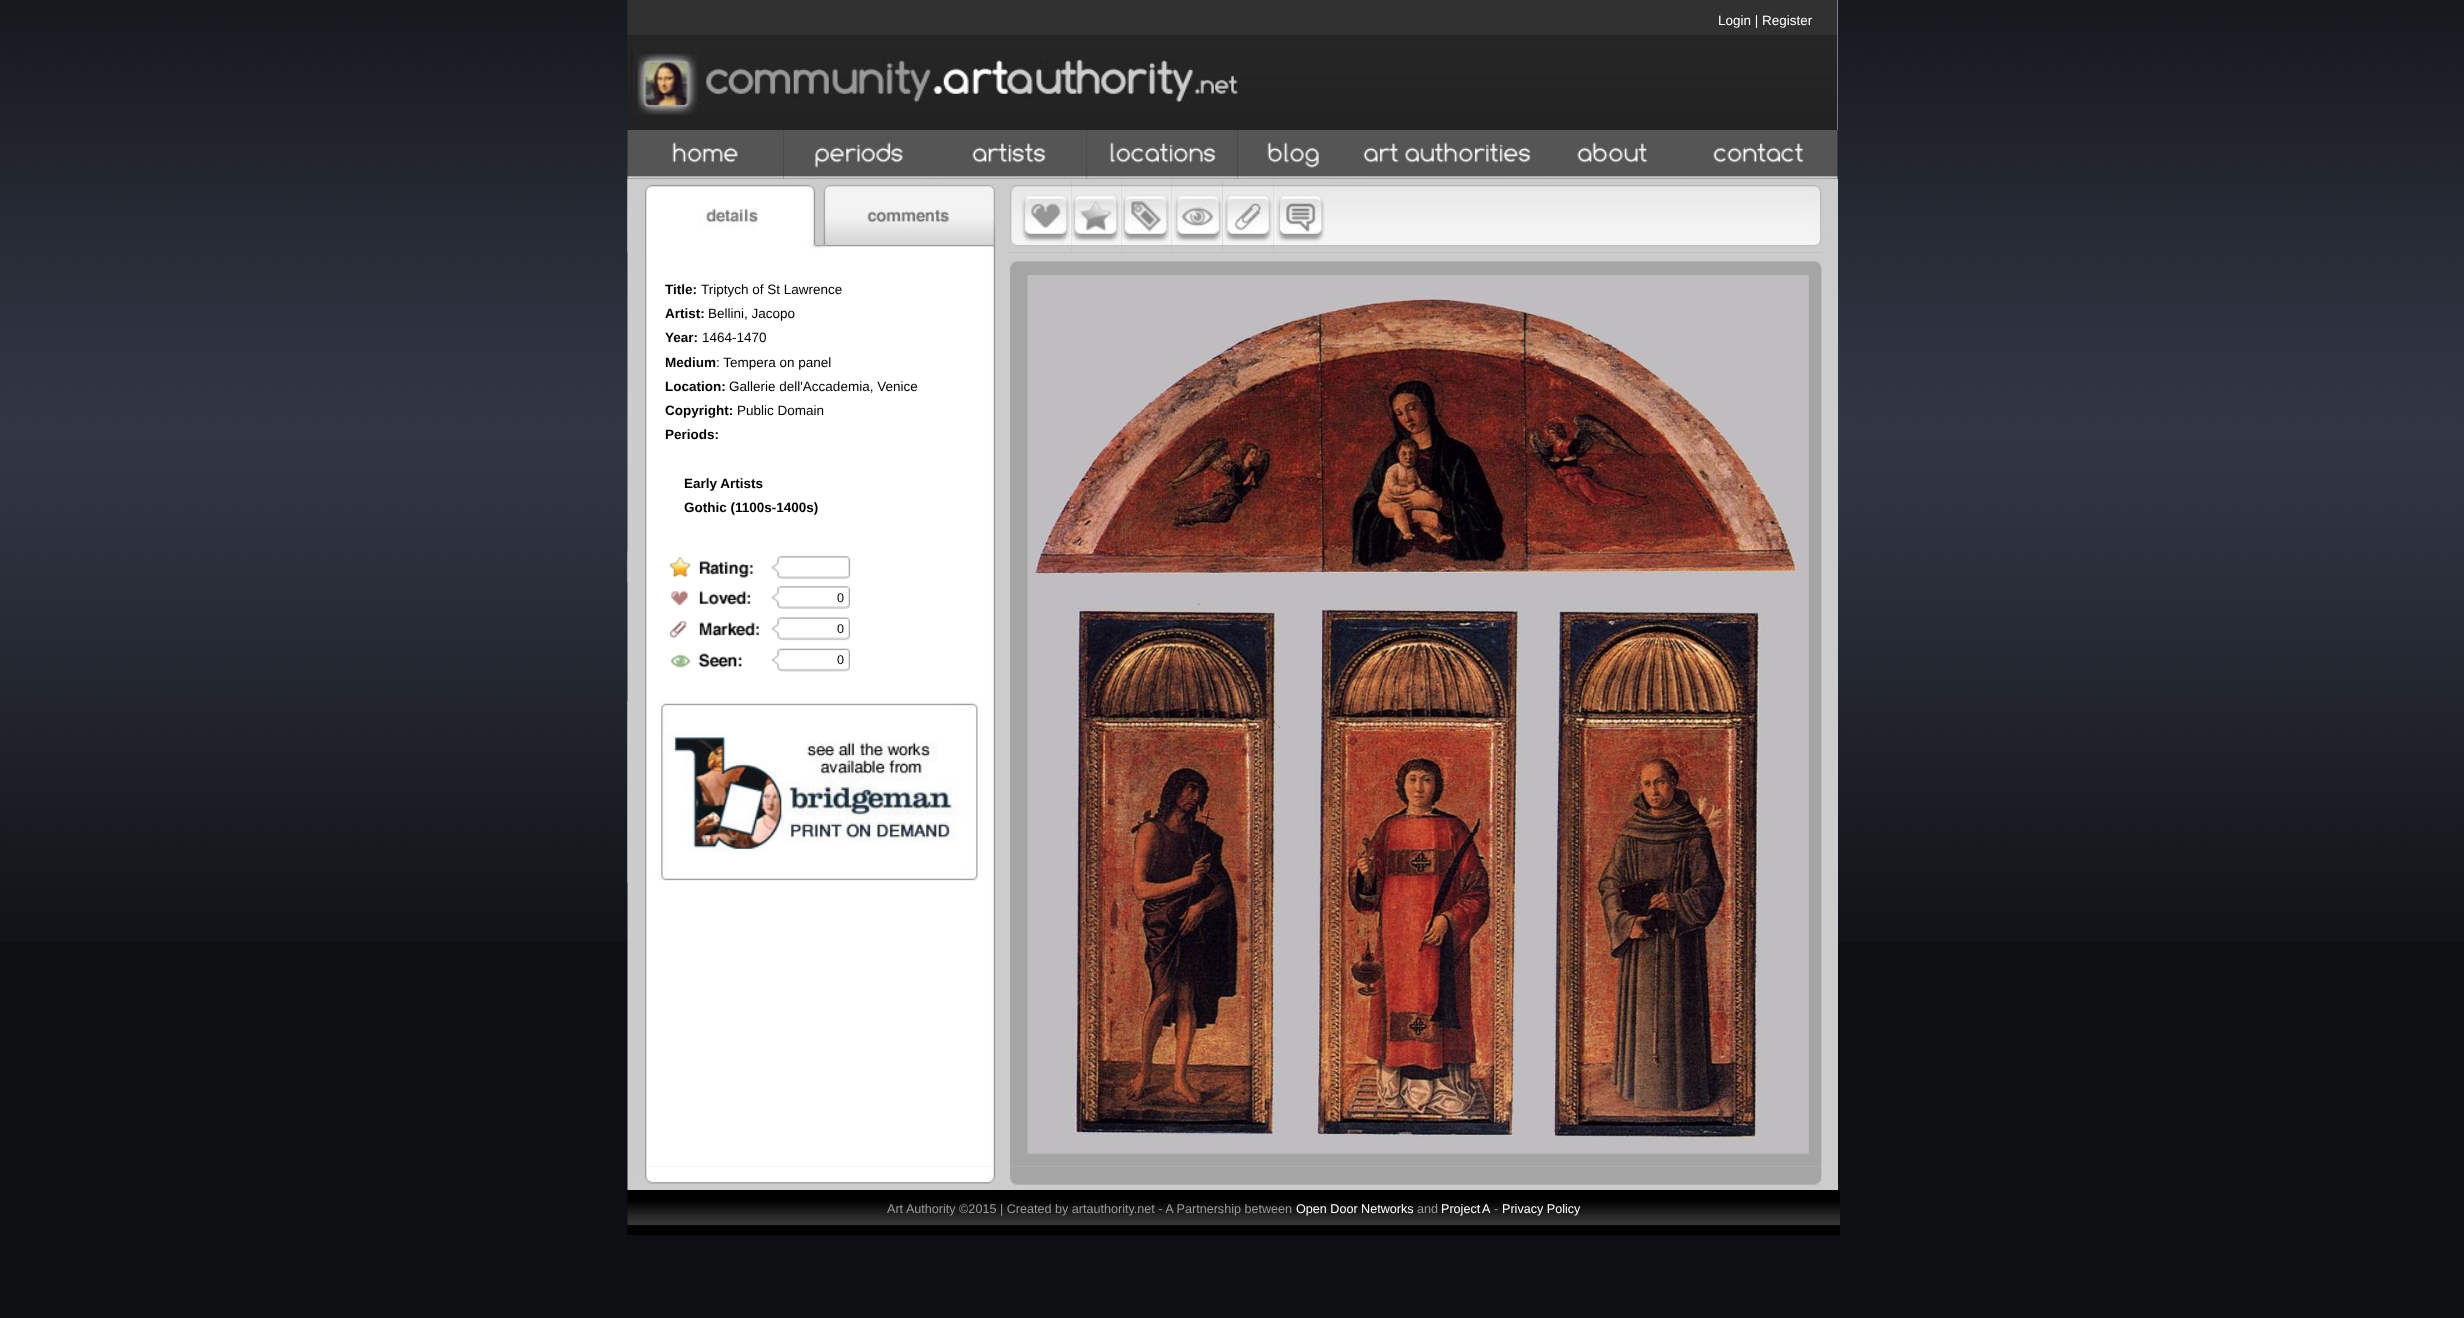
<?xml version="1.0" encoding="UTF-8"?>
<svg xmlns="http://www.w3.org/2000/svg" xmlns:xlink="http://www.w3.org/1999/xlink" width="2464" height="1318">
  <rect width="100%" height="100%" fill="#0e0f13" />
  <image x="0" y="0" width="2464" height="942" xlink:href="image1.png" />
  <rect x="628" width="1210" height="1190" fill="#cccccc" />
  <image x="627" y="0" width="1211" height="130" xlink:href="image2.png" />
  <image x="627" y="0" width="611" height="115" xlink:href="image3.png" />
  <image x="627" y="178" width="1195" height="989" xlink:href="image12.png" />
  <image x="627" y="178" width="369" height="75" xlink:href="image13.png" />
  <rect x="628" y="130" width="1210" height="49" fill="#232323" />
  <image x="627" y="130" width="157" height="49" xlink:href="image4.png" />
  <image x="783" y="130" width="152" height="49" xlink:href="image5.png" />
  <image x="935" y="130" width="152" height="49" xlink:href="image6.png" />
  <image x="1086" y="130" width="152" height="49" xlink:href="image7.png" />
  <image x="1237" y="130" width="113" height="49" xlink:href="image8.png" />
  <image x="1350" y="130" width="195" height="49" xlink:href="image9.png" />
  <image x="1545" y="130" width="135" height="49" xlink:href="image10.png" />
  <image x="1680" y="130" width="158" height="49" xlink:href="image11.png" />
  <image x="627" y="551" width="224" height="32" xlink:href="image14.png" />
  <image x="671" y="586" width="179" height="23" xlink:href="image15.png" />
  <image x="669" y="617" width="181" height="24" xlink:href="image16.png" />
  <image x="671" y="648" width="179" height="24" xlink:href="image17.png" />
  <image x="627" y="701" width="351" height="182" xlink:href="image18.png" />
  <image x="1009" y="179" width="63" height="74" xlink:href="image19.png" />
  <image x="1071" y="179" width="51" height="74" xlink:href="image20.png" />
  <image x="1121" y="179" width="51" height="74" xlink:href="image21.png" />
  <image x="1171" y="179" width="52" height="74" xlink:href="image22.png" />
  <image x="1222" y="179" width="52" height="74" xlink:href="image23.png" />
  <image x="1273" y="179" width="52" height="74" xlink:href="image24.png" />
  <image x="1325" y="179" width="500" height="74" xlink:href="image25.png" />
  <image x="1010" y="252" width="812" height="16" xlink:href="image26.png" />
  <image x="1027" y="275" width="782" height="879" xlink:href="image27.png" />
  <image x="627" y="1166" width="1195" height="24" xlink:href="image28.png" />
  <image x="627" y="1190" width="1213" height="45" xlink:href="image29.png" />
  <text x="1718" y="25" style="font-family: Liberation Sans; font-size: 13.5px; fill: #ffffff">Login | Register</text>
  <text x="665" y="294" style="font-family: Liberation Sans; font-size: 13.5px; font-weight: bold; fill: #000000">Title:</text>
  <text x="701" y="294" style="font-family: Liberation Sans; font-size: 13.5px; fill: #000000">Triptych of St Lawrence</text>
  <text x="665" y="318" style="font-family: Liberation Sans; font-size: 13.5px; font-weight: bold; fill: #000000">Artist:</text>
  <text x="708" y="318" style="font-family: Liberation Sans; font-size: 13.5px; fill: #000000">Bellini, Jacopo</text>
  <text x="665" y="342" style="font-family: Liberation Sans; font-size: 13.5px; font-weight: bold; fill: #000000">Year:</text>
  <text x="702" y="342" style="font-family: Liberation Sans; font-size: 13.5px; fill: #000000">1464-1470</text>
  <text x="665" y="367" style="font-family: Liberation Sans; font-size: 13.5px; font-weight: bold; fill: #000000">Medium</text>
  <text x="716" y="367" style="font-family: Liberation Sans; font-size: 13.5px; fill: #000000">: Tempera on panel</text>
  <text x="665" y="391" style="font-family: Liberation Sans; font-size: 13.5px; font-weight: bold; fill: #000000">Location:</text>
  <text x="729" y="391" style="font-family: Liberation Sans; font-size: 13.5px; fill: #000000">Gallerie dell'Accademia, Venice</text>
  <text x="665" y="415" style="font-family: Liberation Sans; font-size: 13.5px; font-weight: bold; fill: #000000">Copyright:</text>
  <text x="737" y="415" style="font-family: Liberation Sans; font-size: 13.5px; fill: #000000">Public Domain</text>
  <text x="665" y="439" style="font-family: Liberation Sans; font-size: 13.5px; font-weight: bold; fill: #000000">Periods:</text>
  <text x="684" y="488" style="font-family: Liberation Sans; font-size: 13.5px; font-weight: bold; fill: #000000">Early Artists</text>
  <text x="684" y="512" style="font-family: Liberation Sans; font-size: 13.5px; font-weight: bold; fill: #000000">Gothic (1100s-1400s)</text>
  <text x="837" y="602" style="font-family: Liberation Sans; font-size: 12.6px; fill: #000000">0</text>
  <text x="837" y="633" style="font-family: Liberation Sans; font-size: 12.6px; fill: #000000">0</text>
  <text x="837" y="664" style="font-family: Liberation Sans; font-size: 12.6px; fill: #000000">0</text>
  <text x="887" y="1213" style="font-family: Liberation Sans; font-size: 12.6px; fill: #999999">Art Authority ©2015 | Created by artauthority.net - A Partnership between</text>
  <text x="1296" y="1213" style="font-family: Liberation Sans; font-size: 12.6px; fill: #ffffff">Open Door Networks</text>
  <text x="1417" y="1213" style="font-family: Liberation Sans; font-size: 12.6px; fill: #999999">and</text>
  <text x="1441" y="1213" word-spacing="-1" style="font-family: Liberation Sans; font-size: 12.6px; fill: #ffffff">Project A</text>
  <text x="1494" y="1213" style="font-family: Liberation Sans; font-size: 12.6px; fill: #999999">-</text>
  <text x="1502" y="1213" style="font-family: Liberation Sans; font-size: 12.6px; fill: #ffffff">Privacy Policy</text>
</svg>
